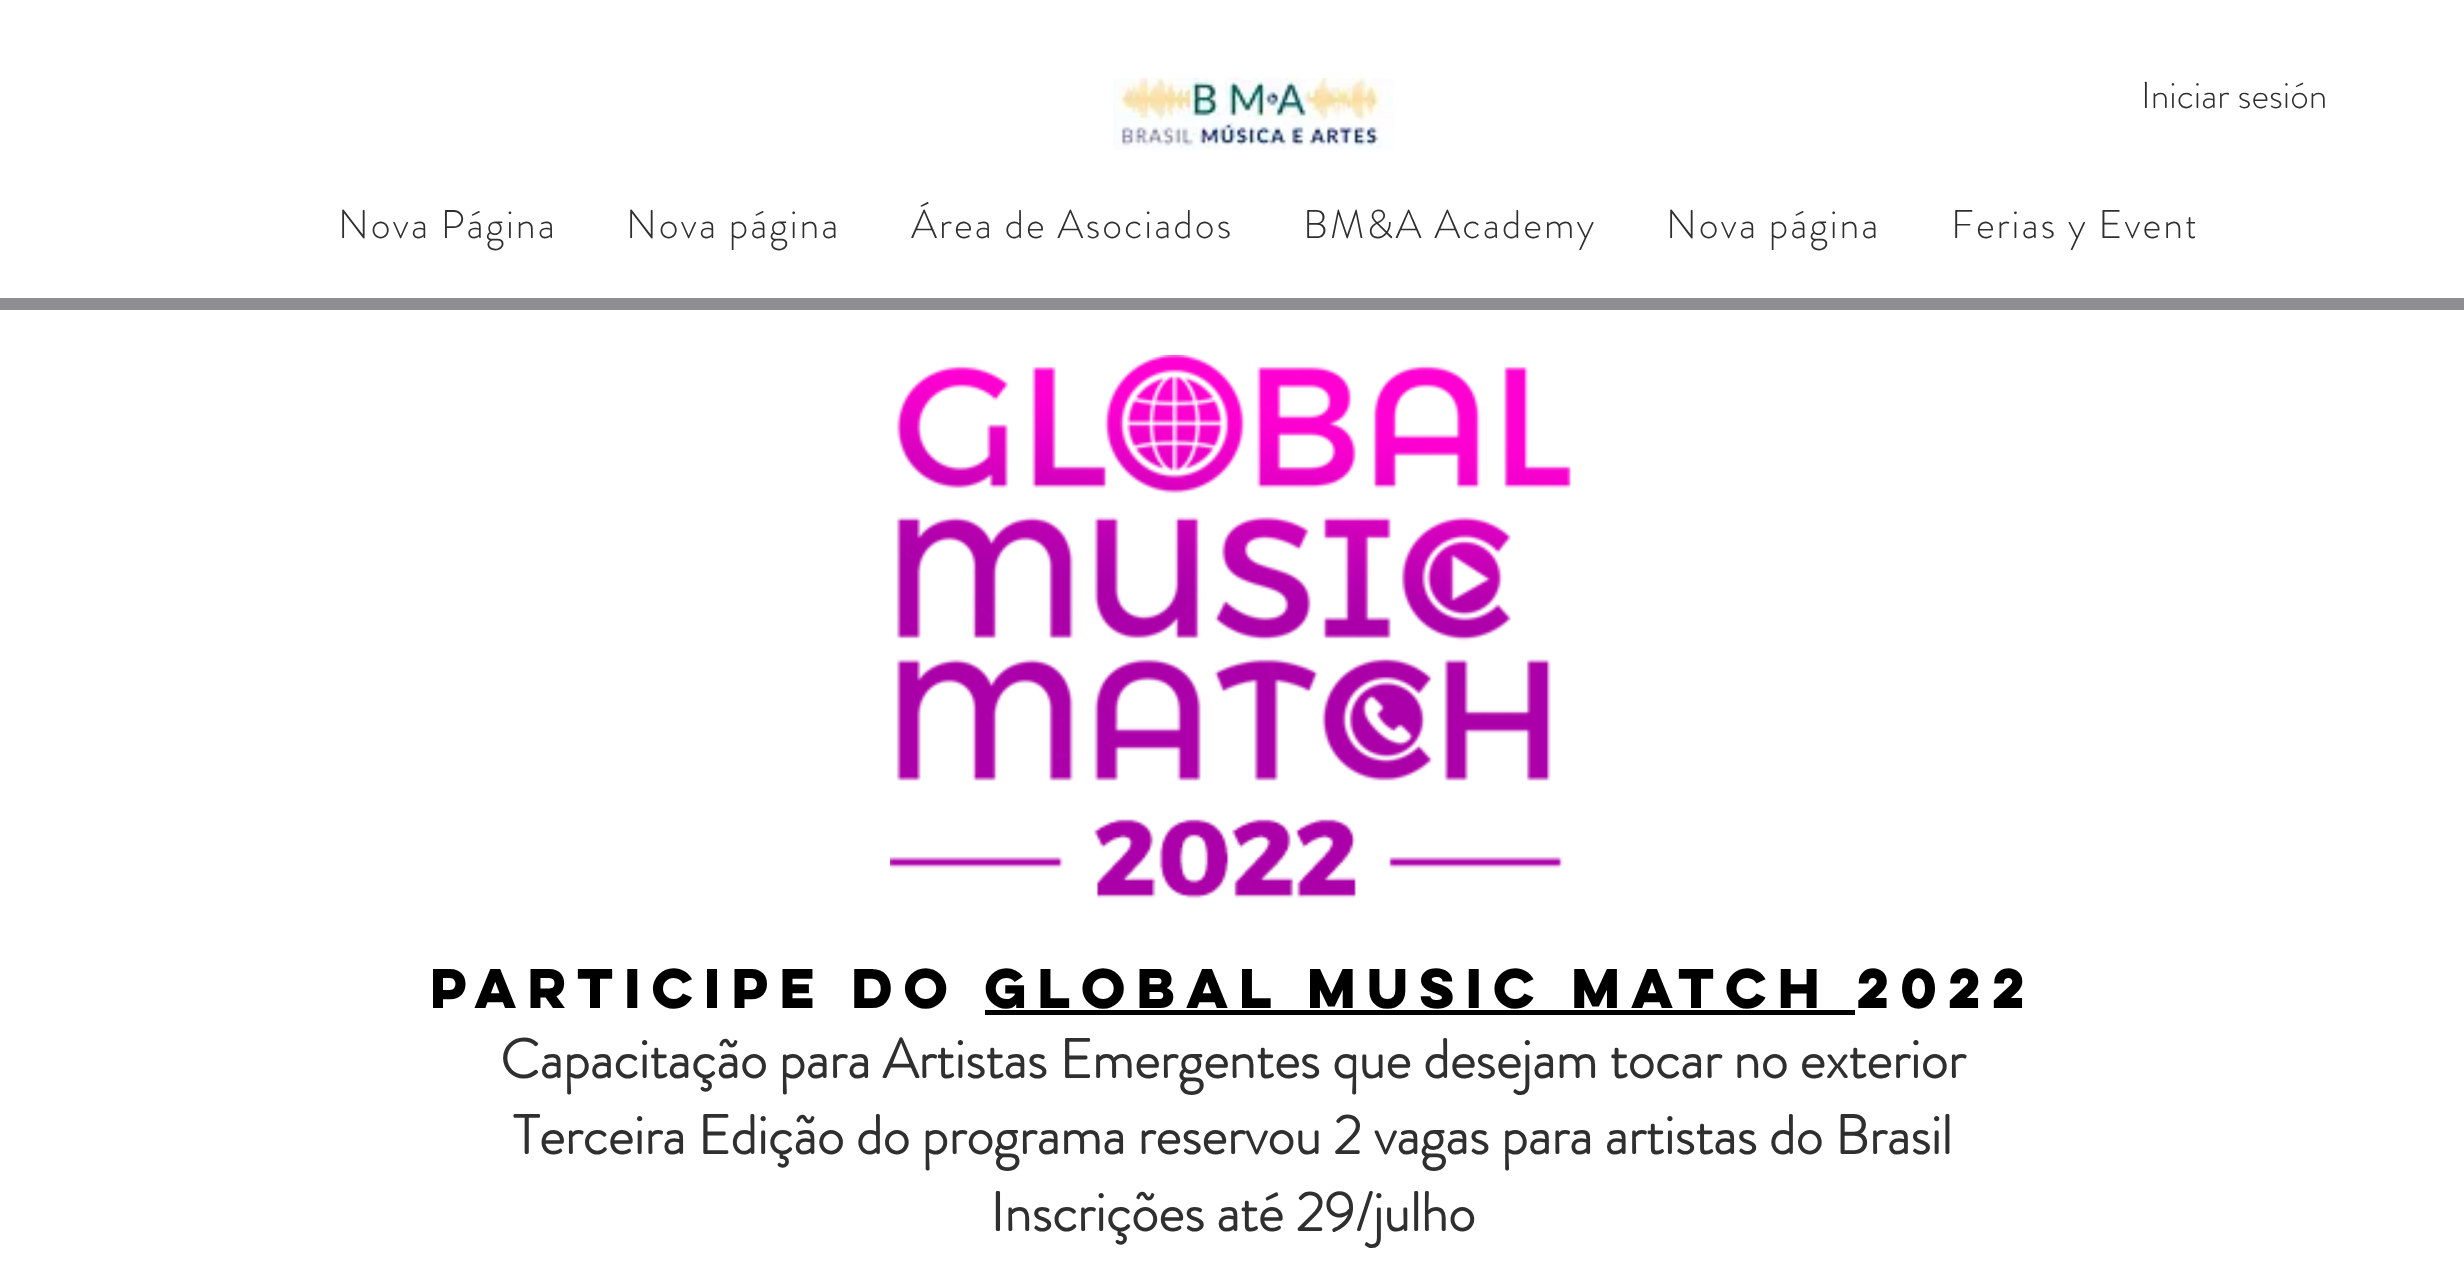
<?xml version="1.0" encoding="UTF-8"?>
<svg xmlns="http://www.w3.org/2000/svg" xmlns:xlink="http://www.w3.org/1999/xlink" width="2464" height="1281">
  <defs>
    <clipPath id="clip1"><rect x="313" y="170" width="1882" height="108" /></clipPath>
  </defs>
  <rect width="100%" height="100%" fill="#ffffff" />
  <image x="1113" y="78" width="281" height="72" xlink:href="image1.png" />
  <rect y="298" width="2464" height="12" fill="#8e8d91" />
  <image x="890" y="355" width="681" height="544" xlink:href="image2.png" />
  <rect x="985" y="1010" width="870" height="5" fill="#000000" />
  <text x="2141" y="108" style="font-family: 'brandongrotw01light'; font-size: 37.5px; font-weight: 300; fill: #2f2f30">Iniciar sesión</text>
  <text x="338" y="238" style="font-family: 'brandongrotw01light'; font-size: 40px; font-weight: 300; letter-spacing: 2px; fill: #2f2f30">Nova Página</text>
  <text x="626" y="238" style="font-family: 'brandongrotw01light'; font-size: 40px; font-weight: 300; letter-spacing: 2px; fill: #2f2f30">Nova página</text>
  <text x="911" y="238" style="font-family: 'brandongrotw01light'; font-size: 40px; font-weight: 300; letter-spacing: 2px; fill: #2f2f30">Área de Asociados</text>
  <text x="1303" y="238" style="font-family: 'brandongrotw01light'; font-size: 40px; font-weight: 300; letter-spacing: 2px; fill: #2f2f30">BM&amp;A Academy</text>
  <text x="1666" y="238" style="font-family: 'brandongrotw01light'; font-size: 40px; font-weight: 300; letter-spacing: 2px; fill: #2f2f30">Nova página</text>
  <g clip-path="url(#clip1)">
    <text x="1951" y="238" style="font-family: 'brandongrotw01light'; font-size: 40px; font-weight: 300; letter-spacing: 2px; fill: #2f2f30">Ferias y Event</text>
  </g>
  <text x="430" y="1008" style="font-family: 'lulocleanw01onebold'; font-size: 50px; font-weight: bold; fill: #000000">PARTICIPE DO GLOBAL MUSIC MATCH 2022</text>
  <text x="500" y="1078" style="font-family: 'brandongrotw01light'; font-size: 55px; font-weight: bold; fill: #2f2f30">Capacitação para Artistas Emergentes que desejam tocar no exterior</text>
  <text x="513" y="1154" style="font-family: 'brandongrotw01light'; font-size: 55px; font-weight: bold; fill: #2f2f30">Terceira Edição do programa reservou 2 vagas para artistas do Brasil</text>
  <text x="990" y="1231" style="font-family: 'brandongrotw01light'; font-size: 55px; font-weight: bold; fill: #2f2f30">Inscrições até 29/julho</text>
</svg>
